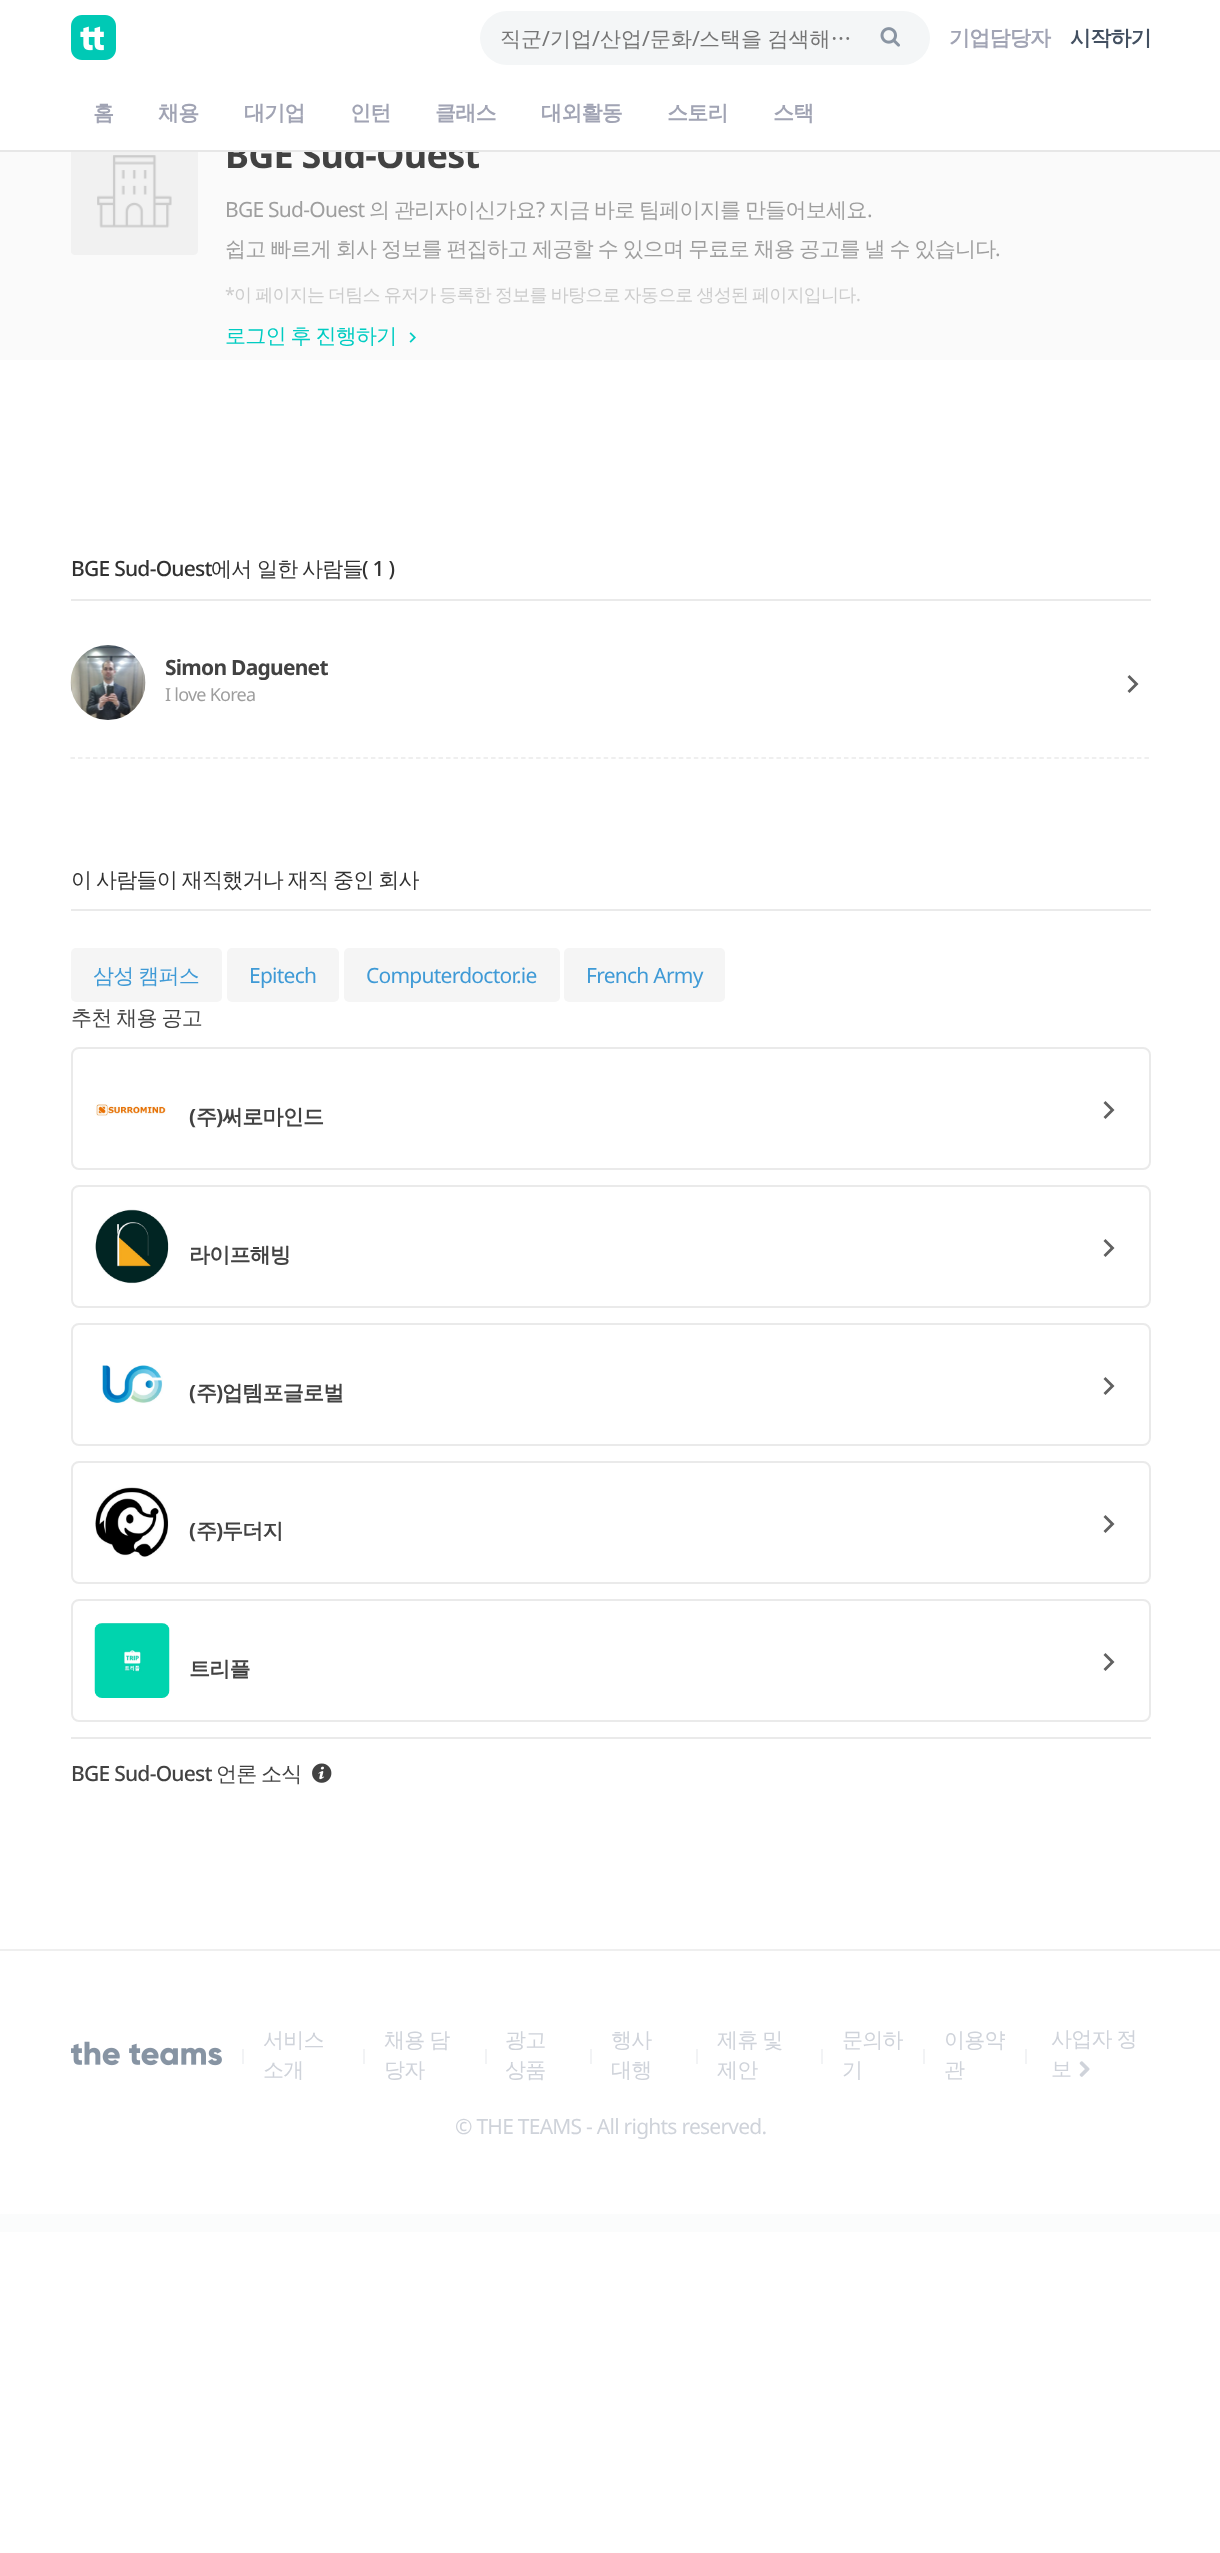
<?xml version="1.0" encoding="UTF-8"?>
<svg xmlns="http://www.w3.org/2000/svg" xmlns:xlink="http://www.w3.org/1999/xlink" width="1220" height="2553">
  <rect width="100%" height="100%" fill="#ffffff" />
  <image x="71" y="15" width="45" height="45" xlink:href="image1.png" />
  <rect x="480" y="11" width="450" height="54" rx="27" fill="#f4f6f7" />
  <image x="880" y="27" width="20" height="20" xlink:href="image2.png" />
  <rect y="152" width="1220" height="208" fill="#fafafa" />
  <image x="71" y="152" width="127" height="103" xlink:href="image3.png" />
  <image x="409" y="332" width="7" height="11" xlink:href="image4.png" />
  <rect x="71" y="599" width="1080" height="2" fill="#eaeaea" />
  <image x="70" y="645" width="76" height="75" xlink:href="image5.png" />
  <path d="M 1127.5 691 l 7 -7 l -7 -7 l 2 -2 l 9 9 l -9 9 z" fill="#616161" />
  <path d="M 70.5 758 h 1080" fill="none" stroke="#eaeaea" stroke-width="1.5" stroke-dasharray="4.5 3.01" />
  <rect x="71" y="909" width="1080" height="2" fill="#eaeaea" />
  <rect x="71" y="948" width="151" height="54" rx="5" fill="#f5f5f5" />
  <rect x="227" y="948" width="112" height="54" rx="5" fill="#f5f5f5" />
  <rect x="344" y="948" width="216" height="54" rx="5" fill="#f5f5f5" />
  <rect x="564" y="948" width="161" height="54" rx="5" fill="#f5f5f5" />
  <rect x="72" y="1048" width="1078" height="121" rx="7" fill="none" stroke="#eaeaea" stroke-width="2" />
  <image x="96" y="1104" width="70" height="12" xlink:href="image6.png" />
  <path d="M 1103.5 1117 l 7 -7 l -7 -7 l 2 -2 l 9 9 l -9 9 z" fill="#616161" />
  <rect x="72" y="1186" width="1078" height="121" rx="7" fill="none" stroke="#eaeaea" stroke-width="2" />
  <image x="95" y="1209" width="74" height="75" xlink:href="image7.png" />
  <path d="M 1103.5 1255 l 7 -7 l -7 -7 l 2 -2 l 9 9 l -9 9 z" fill="#616161" />
  <rect x="72" y="1324" width="1078" height="121" rx="7" fill="none" stroke="#eaeaea" stroke-width="2" />
  <image x="102" y="1365" width="61" height="39" xlink:href="image8.png" />
  <path d="M 1103.5 1393 l 7 -7 l -7 -7 l 2 -2 l 9 9 l -9 9 z" fill="#616161" />
  <rect x="72" y="1462" width="1078" height="121" rx="7" fill="none" stroke="#eaeaea" stroke-width="2" />
  <image x="95" y="1487" width="74" height="70" xlink:href="image9.png" />
  <path d="M 1103.5 1531 l 7 -7 l -7 -7 l 2 -2 l 9 9 l -9 9 z" fill="#616161" />
  <rect x="72" y="1600" width="1078" height="121" rx="7" fill="none" stroke="#eaeaea" stroke-width="2" />
  <image x="94" y="1623" width="76" height="75" xlink:href="image10.png" />
  <path d="M 1103.5 1669 l 7 -7 l -7 -7 l 2 -2 l 9 9 l -9 9 z" fill="#616161" />
  <rect x="71" y="1737" width="1080" height="2" fill="#eaeaea" />
  <image x="312" y="1763" width="20" height="20" xlink:href="image11.png" />
  <rect y="1949" width="1220" height="2" fill="#efefef" />
  <image x="71" y="2041" width="151" height="25" xlink:href="image12.png" />
  <rect x="242" y="2049" width="2" height="15" fill="#f2f3f5" />
  <rect x="363" y="2049" width="2" height="15" fill="#f2f3f5" />
  <rect x="485" y="2049" width="2" height="15" fill="#f2f3f5" />
  <rect x="590" y="2049" width="2" height="15" fill="#f2f3f5" />
  <rect x="696" y="2049" width="2" height="15" fill="#f2f3f5" />
  <rect x="821" y="2049" width="2" height="15" fill="#f2f3f5" />
  <rect x="923" y="2049" width="2" height="15" fill="#f2f3f5" />
  <rect x="1025" y="2049" width="2" height="15" fill="#f2f3f5" />
  <image x="1079" y="2061" width="11" height="16" xlink:href="image13.png" />
  <rect y="2214" width="1220" height="18" fill="#fbfcfc" />
  <text x="500" y="46" style="font-family: WenQuanYi Zen Hei; font-size: 21px; font-weight: 500; fill: #757575">직군</text>
  <text x="542" y="46" style="font-family: Noto Sans; font-size: 21px; fill: #757575">/</text>
  <text x="550" y="46" style="font-family: WenQuanYi Zen Hei; font-size: 21px; font-weight: 500; fill: #757575">기업</text>
  <text x="592" y="46" style="font-family: Noto Sans; font-size: 21px; fill: #757575">/</text>
  <text x="600" y="46" style="font-family: WenQuanYi Zen Hei; font-size: 21px; font-weight: 500; fill: #757575">산업</text>
  <text x="642" y="46" style="font-family: Noto Sans; font-size: 21px; fill: #757575">/</text>
  <text x="650" y="46" style="font-family: WenQuanYi Zen Hei; font-size: 21px; font-weight: 500; fill: #757575">문화</text>
  <text x="692" y="46" style="font-family: Noto Sans; font-size: 21px; fill: #757575">/</text>
  <text x="699" y="46" word-spacing="-0.8" style="font-family: WenQuanYi Zen Hei; font-size: 21px; font-weight: 500; fill: #757575">스택을 검색해…</text>
  <text x="949" y="45" style="font-family: WenQuanYi Zen Hei; font-size: 21px; font-weight: bold; letter-spacing: -0.75px; fill: #a1a4b4">기업담당자</text>
  <text x="1070" y="45" style="font-family: WenQuanYi Zen Hei; font-size: 21px; font-weight: bold; letter-spacing: -0.75px; fill: #435061">시작하기</text>
  <text x="93" y="120" style="font-family: WenQuanYi Zen Hei; font-size: 21px; font-weight: bold; letter-spacing: -0.75px; fill: #a1a4b4">홈</text>
  <text x="158" y="120" style="font-family: WenQuanYi Zen Hei; font-size: 21px; font-weight: bold; letter-spacing: -0.75px; fill: #a1a4b4">채용</text>
  <text x="244" y="120" style="font-family: WenQuanYi Zen Hei; font-size: 21px; font-weight: bold; letter-spacing: -0.75px; fill: #a1a4b4">대기업</text>
  <text x="350" y="120" style="font-family: WenQuanYi Zen Hei; font-size: 21px; font-weight: bold; letter-spacing: -0.75px; fill: #a1a4b4">인턴</text>
  <text x="435" y="120" style="font-family: WenQuanYi Zen Hei; font-size: 21px; font-weight: bold; letter-spacing: -0.75px; fill: #a1a4b4">클래스</text>
  <text x="541" y="120" style="font-family: WenQuanYi Zen Hei; font-size: 21px; font-weight: bold; letter-spacing: -0.75px; fill: #a1a4b4">대외활동</text>
  <text x="667" y="120" style="font-family: WenQuanYi Zen Hei; font-size: 21px; font-weight: bold; letter-spacing: -0.75px; fill: #a1a4b4">스토리</text>
  <text x="773" y="120" style="font-family: WenQuanYi Zen Hei; font-size: 21px; font-weight: bold; letter-spacing: -0.75px; fill: #a1a4b4">스택</text>
  <text x="225" y="168" style="font-family: Noto Sans; font-size: 36px; font-weight: bold; letter-spacing: -0.75px; fill: #424242">BGE Sud-Ouest</text>
  <rect y="150" width="1220" height="2" fill="#e7e7e7" />
  <rect x="228" y="140" width="251" height="10" fill="#ffffff" />
  <text x="225" y="217" style="font-family: Noto Sans; font-size: 21px; letter-spacing: -0.75px; fill: #9e9e9e">BGE Sud-Ouest</text>
  <text x="369" y="217" style="font-family: WenQuanYi Zen Hei; font-size: 21px; font-weight: 500; letter-spacing: -0.75px; fill: #9e9e9e">의</text>
  <text x="394" y="217" style="font-family: WenQuanYi Zen Hei; font-size: 21px; font-weight: 500; letter-spacing: -0.75px; fill: #9e9e9e">관리자이신가요</text>
  <text x="536" y="217" style="font-family: Noto Sans; font-size: 21px; letter-spacing: -0.75px; fill: #9e9e9e">?</text>
  <text x="549" y="217" style="font-family: WenQuanYi Zen Hei; font-size: 21px; font-weight: 500; letter-spacing: -0.75px; fill: #9e9e9e">지금</text>
  <text x="594" y="217" style="font-family: WenQuanYi Zen Hei; font-size: 21px; font-weight: 500; letter-spacing: -0.75px; fill: #9e9e9e">바로</text>
  <text x="639" y="217" style="font-family: WenQuanYi Zen Hei; font-size: 21px; font-weight: 500; letter-spacing: -0.75px; fill: #9e9e9e">팀페이지를</text>
  <text x="745" y="217" style="font-family: WenQuanYi Zen Hei; font-size: 21px; font-weight: 500; letter-spacing: -0.75px; fill: #9e9e9e">만들어보세요</text>
  <text x="867" y="217" style="font-family: Noto Sans; font-size: 21px; letter-spacing: -0.75px; fill: #9e9e9e">.</text>
  <text x="225" y="256" word-spacing="-0.8" style="font-family: WenQuanYi Zen Hei; font-size: 21px; font-weight: 500; letter-spacing: -0.75px; fill: #9e9e9e">쉽고 빠르게 회사 정보를 편집하고 제공할 수 있으며 무료로 채용 공고를 낼 수 있습니다</text>
  <text x="995" y="256" style="font-family: Noto Sans; font-size: 21px; letter-spacing: -0.75px; fill: #9e9e9e">.</text>
  <text x="225" y="301" style="font-family: Noto Sans; font-size: 18px; letter-spacing: -0.75px; fill: #cccccc">*</text>
  <text x="234" y="301" word-spacing="-0.75" style="font-family: WenQuanYi Zen Hei; font-size: 18px; font-weight: 500; letter-spacing: -0.75px; fill: #cccccc">이 페이지는 더팀스 유저가 등록한 정보를 바탕으로 자동으로 생성된 페이지입니다</text>
  <text x="856" y="301" style="font-family: Noto Sans; font-size: 18px; letter-spacing: -0.75px; fill: #cccccc">.</text>
  <text x="225" y="343" word-spacing="-0.8" style="font-family: WenQuanYi Zen Hei; font-size: 21px; font-weight: 500; letter-spacing: -0.75px; fill: #00ccc2">로그인 후 진행하기</text>
  <text x="71" y="576" style="font-family: Noto Sans; font-size: 21px; font-weight: 500; letter-spacing: -0.75px; fill: #313131">BGE Sud-Ouest</text>
  <text x="211" y="576" style="font-family: WenQuanYi Zen Hei; font-size: 21px; font-weight: 500; letter-spacing: -0.75px; fill: #313131">에서</text>
  <text x="257" y="576" style="font-family: WenQuanYi Zen Hei; font-size: 21px; font-weight: 500; letter-spacing: -0.75px; fill: #313131">일한</text>
  <text x="302" y="576" style="font-family: WenQuanYi Zen Hei; font-size: 21px; font-weight: 500; letter-spacing: -0.75px; fill: #313131">사람들</text>
  <text x="362" y="576" style="font-family: Noto Sans; font-size: 21px; font-weight: 500; letter-spacing: -0.75px; fill: #313131">( 1 )</text>
  <text x="165" y="675" style="font-family: Noto Sans; font-size: 21px; font-weight: bold; letter-spacing: -0.75px; fill: #424242">Simon Daguenet</text>
  <text x="165" y="701" style="font-family: Noto Sans; font-size: 18px; letter-spacing: -0.75px; fill: #9e9e9e">I love Korea</text>
  <text x="71" y="887" word-spacing="-0.8" style="font-family: WenQuanYi Zen Hei; font-size: 21px; font-weight: 500; letter-spacing: -0.75px; fill: #313131">이 사람들이 재직했거나 재직 중인 회사</text>
  <text x="93" y="983" word-spacing="-0.8" style="font-family: WenQuanYi Zen Hei; font-size: 21px; font-weight: 500; letter-spacing: -0.75px; fill: #3f9ad6">삼성 캠퍼스</text>
  <text x="249" y="983" style="font-family: Noto Sans; font-size: 21px; letter-spacing: -0.75px; fill: #3f9ad6">Epitech</text>
  <text x="366" y="983" style="font-family: Noto Sans; font-size: 21px; letter-spacing: -0.75px; fill: #3f9ad6">Computerdoctor.ie</text>
  <text x="586" y="983" style="font-family: Noto Sans; font-size: 21px; letter-spacing: -0.75px; fill: #3f9ad6">French Army</text>
  <text x="71" y="1025" word-spacing="-0.8" style="font-family: WenQuanYi Zen Hei; font-size: 21px; font-weight: 500; letter-spacing: -0.75px; fill: #424242">추천 채용 공고</text>
  <text x="189" y="1124" style="font-family: Noto Sans; font-size: 21px; font-weight: bold; letter-spacing: -0.75px; fill: #424242">(</text>
  <text x="196" y="1124" style="font-family: WenQuanYi Zen Hei; font-size: 21px; font-weight: bold; letter-spacing: -0.75px; fill: #424242">주</text>
  <text x="216" y="1124" style="font-family: Noto Sans; font-size: 21px; font-weight: bold; letter-spacing: -0.75px; fill: #424242">)</text>
  <text x="222" y="1124" style="font-family: WenQuanYi Zen Hei; font-size: 21px; font-weight: bold; letter-spacing: -0.75px; fill: #424242">써로마인드</text>
  <text x="189" y="1262" style="font-family: WenQuanYi Zen Hei; font-size: 21px; font-weight: bold; letter-spacing: -0.75px; fill: #424242">라이프해빙</text>
  <text x="189" y="1400" style="font-family: Noto Sans; font-size: 21px; font-weight: bold; letter-spacing: -0.75px; fill: #424242">(</text>
  <text x="196" y="1400" style="font-family: WenQuanYi Zen Hei; font-size: 21px; font-weight: bold; letter-spacing: -0.75px; fill: #424242">주</text>
  <text x="216" y="1400" style="font-family: Noto Sans; font-size: 21px; font-weight: bold; letter-spacing: -0.75px; fill: #424242">)</text>
  <text x="222" y="1400" style="font-family: WenQuanYi Zen Hei; font-size: 21px; font-weight: bold; letter-spacing: -0.75px; fill: #424242">업템포글로벌</text>
  <text x="189" y="1538" style="font-family: Noto Sans; font-size: 21px; font-weight: bold; letter-spacing: -0.75px; fill: #424242">(</text>
  <text x="196" y="1538" style="font-family: WenQuanYi Zen Hei; font-size: 21px; font-weight: bold; letter-spacing: -0.75px; fill: #424242">주</text>
  <text x="216" y="1538" style="font-family: Noto Sans; font-size: 21px; font-weight: bold; letter-spacing: -0.75px; fill: #424242">)</text>
  <text x="222" y="1538" style="font-family: WenQuanYi Zen Hei; font-size: 21px; font-weight: bold; letter-spacing: -0.75px; fill: #424242">두더지</text>
  <text x="189" y="1676" style="font-family: WenQuanYi Zen Hei; font-size: 21px; font-weight: bold; letter-spacing: -0.75px; fill: #424242">트리플</text>
  <text x="71" y="1781" style="font-family: Noto Sans; font-size: 21px; font-weight: 500; letter-spacing: -0.75px; fill: #424242">BGE Sud-Ouest</text>
  <text x="216" y="1781" style="font-family: WenQuanYi Zen Hei; font-size: 21px; font-weight: 500; letter-spacing: -0.75px; fill: #424242">언론</text>
  <text x="261" y="1781" style="font-family: WenQuanYi Zen Hei; font-size: 21px; font-weight: 500; letter-spacing: -0.75px; fill: #424242">소식</text>
  <text x="263" y="2047" style="font-family: WenQuanYi Zen Hei; font-size: 21px; font-weight: 500; letter-spacing: -0.75px; fill: #cfd3da">서비스</text>
  <text x="263" y="2077" style="font-family: WenQuanYi Zen Hei; font-size: 21px; font-weight: 500; letter-spacing: -0.75px; fill: #cfd3da">소개</text>
  <text x="384" y="2047" word-spacing="-0.8" style="font-family: WenQuanYi Zen Hei; font-size: 21px; font-weight: 500; letter-spacing: -0.75px; fill: #cfd3da">채용 담</text>
  <text x="384" y="2077" style="font-family: WenQuanYi Zen Hei; font-size: 21px; font-weight: 500; letter-spacing: -0.75px; fill: #cfd3da">당자</text>
  <text x="505" y="2047" style="font-family: WenQuanYi Zen Hei; font-size: 21px; font-weight: 500; letter-spacing: -0.75px; fill: #cfd3da">광고</text>
  <text x="505" y="2077" style="font-family: WenQuanYi Zen Hei; font-size: 21px; font-weight: 500; letter-spacing: -0.75px; fill: #cfd3da">상품</text>
  <text x="611" y="2047" style="font-family: WenQuanYi Zen Hei; font-size: 21px; font-weight: 500; letter-spacing: -0.75px; fill: #cfd3da">행사</text>
  <text x="611" y="2077" style="font-family: WenQuanYi Zen Hei; font-size: 21px; font-weight: 500; letter-spacing: -0.75px; fill: #cfd3da">대행</text>
  <text x="717" y="2047" word-spacing="-0.8" style="font-family: WenQuanYi Zen Hei; font-size: 21px; font-weight: 500; letter-spacing: -0.75px; fill: #cfd3da">제휴 및</text>
  <text x="717" y="2077" style="font-family: WenQuanYi Zen Hei; font-size: 21px; font-weight: 500; letter-spacing: -0.75px; fill: #cfd3da">제안</text>
  <text x="842" y="2047" style="font-family: WenQuanYi Zen Hei; font-size: 21px; font-weight: 500; letter-spacing: -0.75px; fill: #cfd3da">문의하</text>
  <text x="842" y="2077" style="font-family: WenQuanYi Zen Hei; font-size: 21px; font-weight: 500; letter-spacing: -0.75px; fill: #cfd3da">기</text>
  <text x="944" y="2047" style="font-family: WenQuanYi Zen Hei; font-size: 21px; font-weight: 500; letter-spacing: -0.75px; fill: #cfd3da">이용약</text>
  <text x="944" y="2077" style="font-family: WenQuanYi Zen Hei; font-size: 21px; font-weight: 500; letter-spacing: -0.75px; fill: #cfd3da">관</text>
  <text x="1051" y="2046" word-spacing="-0.8" style="font-family: WenQuanYi Zen Hei; font-size: 21px; font-weight: 500; letter-spacing: -0.75px; fill: #cfd3da">사업자 정</text>
  <text x="1051" y="2076" style="font-family: WenQuanYi Zen Hei; font-size: 21px; font-weight: 500; letter-spacing: -0.75px; fill: #cfd3da">보</text>
  <text x="455" y="2134" style="font-family: Noto Sans; font-size: 21px; letter-spacing: -0.75px; fill: #cfd3da">© THE TEAMS - All rights reserved.</text>
</svg>
